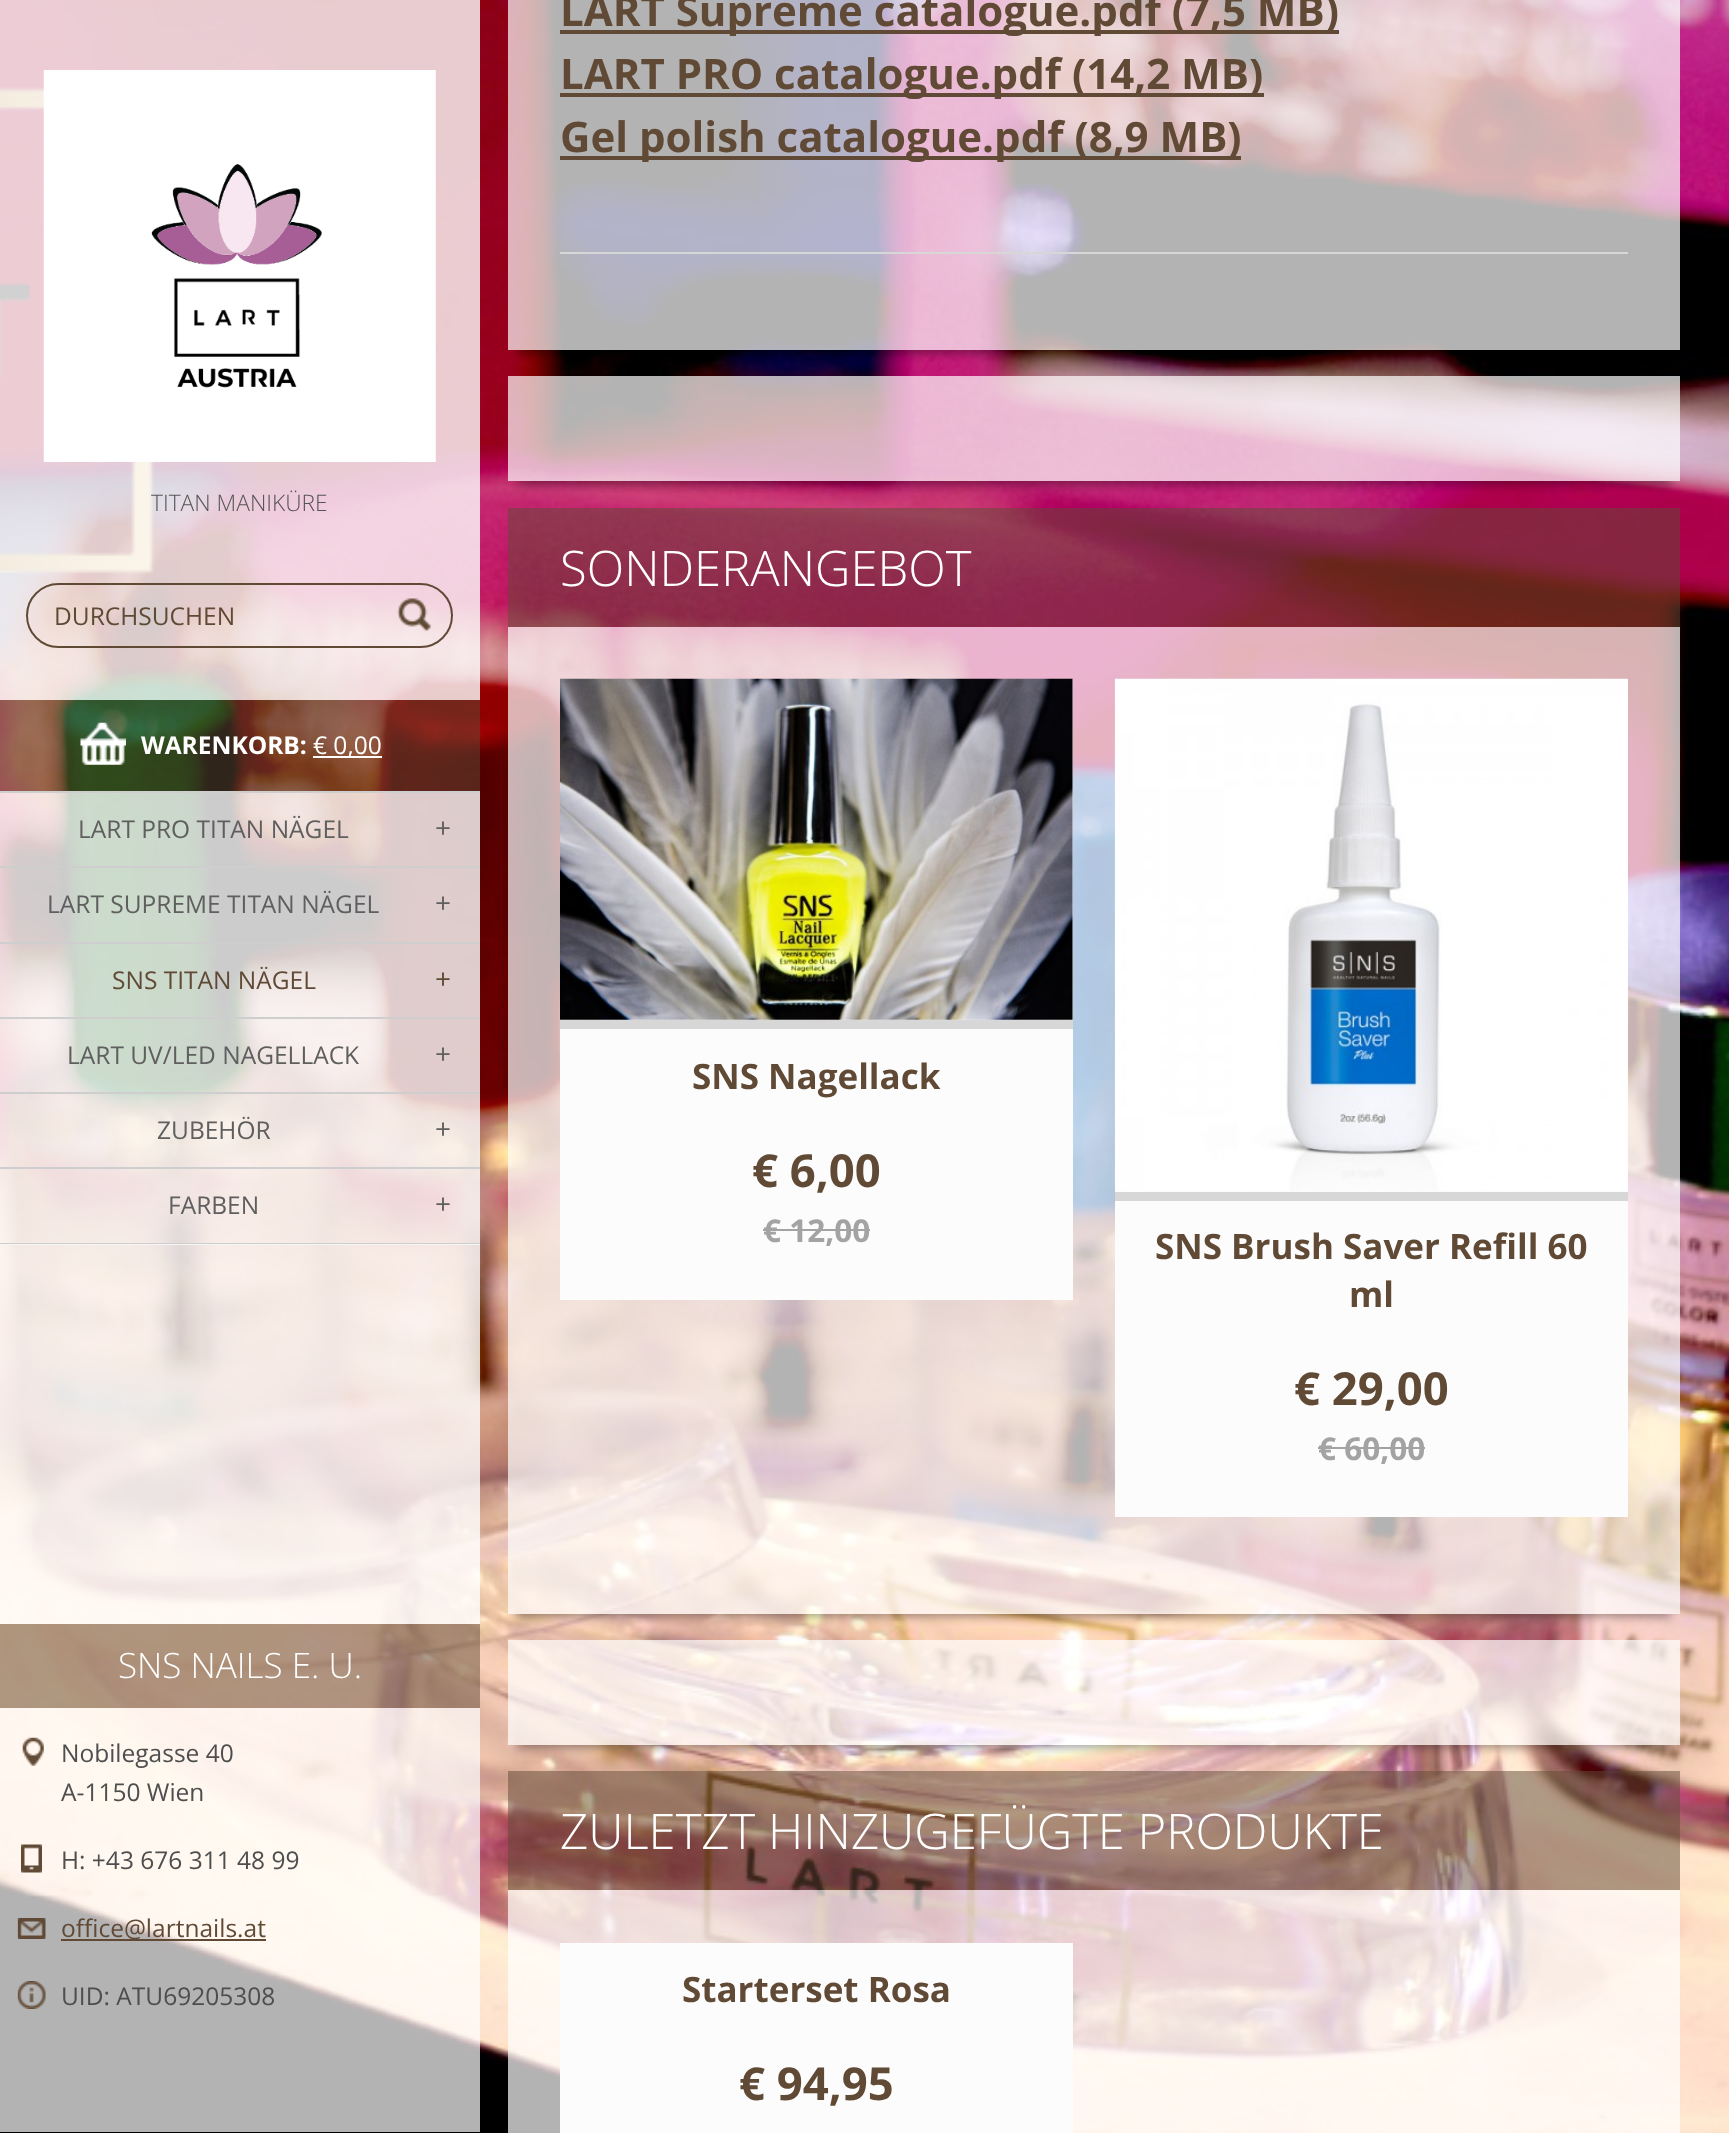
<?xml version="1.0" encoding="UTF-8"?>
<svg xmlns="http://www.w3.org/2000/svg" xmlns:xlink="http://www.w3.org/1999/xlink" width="1729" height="2133">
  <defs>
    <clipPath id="clip1"><rect x="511" y="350" width="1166" height="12" /></clipPath>
    <clipPath id="clip2"><rect x="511" y="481" width="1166" height="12" /></clipPath>
    <clipPath id="clip3"><path d="M 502 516 h 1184 v 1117 h -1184 z m 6 -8 h 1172 v 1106 h -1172 z" clip-rule="evenodd" /></clipPath>
    <clipPath id="clip4"><path d="M 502 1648 h 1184 v 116 h -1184 z m 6 -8 h 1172 v 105 h -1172 z" clip-rule="evenodd" /></clipPath>
  </defs>
  <rect width="100%" height="100%" fill="#ffffff" />
  <image x="0" y="0" width="1729" height="2133" xlink:href="image1.png" />
  <rect width="480" height="483" fill="#ffffff" fill-opacity="0.8" />
  <image x="43" y="70" width="393" height="392" xlink:href="image2.png" />
  <rect y="483" width="480" height="82" fill="#ffffff" fill-opacity="0.8" />
  <rect y="565" width="480" height="135" fill="#ffffff" fill-opacity="0.8" />
  <rect x="27" y="584" width="425" height="63" rx="31.5" fill="none" stroke="#604a36" stroke-width="2" />
  <image x="397" y="598" width="34" height="34" xlink:href="image3.png" />
  <rect y="700" width="480" height="91" fill="#604a36" fill-opacity="0.5" />
  <image x="80" y="722" width="46" height="43" xlink:href="image4.png" />
  <rect x="313" y="756" width="69" height="2" fill="#ffffff" />
  <rect y="793" width="480" height="450" fill="#ffffff" fill-opacity="0.8" />
  <rect y="791" width="480" height="2" fill="#cecece" />
  <rect y="866" width="480" height="2" fill="#cecece" />
  <rect y="942" width="480" height="2" fill="#cecece" />
  <rect y="1017" width="480" height="2" fill="#cecece" />
  <rect y="1092" width="480" height="2" fill="#cecece" />
  <rect y="1167" width="480" height="2" fill="#cecece" />
  <rect y="1243" width="480" height="2" fill="#cecece" />
  <rect y="1244" width="480" height="380" fill="#ffffff" fill-opacity="0.8" />
  <rect y="1624" width="480" height="84" fill="#604a36" fill-opacity="0.5" />
  <rect y="1708" width="480" height="424" fill="#ffffff" fill-opacity="0.7" />
  <image x="22" y="1737" width="22" height="29" xlink:href="image5.png" />
  <image x="21" y="1844" width="21" height="29" xlink:href="image6.png" />
  <image x="17" y="1918" width="29" height="21" xlink:href="image7.png" />
  <rect x="61" y="1939" width="205" height="2" fill="#604a36" />
  <image x="17" y="1981" width="29" height="28" xlink:href="image8.png" />
  <g clip-path="url(#clip1)">
    <rect x="518" y="-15" width="1152" height="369" fill="#000000" fill-opacity="0.35" filter="blur(5px)" />
  </g>
  <rect x="508" width="1172" height="298" fill="#ffffff" fill-opacity="0.7" />
  <rect x="560" y="252" width="1068" height="2" fill="#d7d7d7" />
  <rect x="560" y="30" width="779" height="4" fill="#604a36" />
  <rect x="560" y="93" width="704" height="4" fill="#604a36" />
  <rect x="560" y="156" width="681" height="4" fill="#604a36" />
  <rect x="508" y="298" width="1172" height="52" fill="#ffffff" fill-opacity="0.7" />
  <g clip-path="url(#clip2)">
    <rect x="518" y="401" width="1152" height="84" fill="#000000" fill-opacity="0.35" filter="blur(5px)" />
  </g>
  <rect x="508" y="376" width="1172" height="53" fill="#ffffff" fill-opacity="0.7" />
  <rect x="508" y="429" width="1172" height="52" fill="#ffffff" fill-opacity="0.7" />
  <g clip-path="url(#clip3)">
    <rect x="518" y="532" width="1152" height="1085" fill="#000000" fill-opacity="0.35" filter="blur(5px)" />
  </g>
  <rect x="508" y="508" width="1172" height="119" fill="#604a36" fill-opacity="0.5" />
  <rect x="508" y="627" width="1172" height="934" fill="#ffffff" fill-opacity="0.7" />
  <rect x="560" y="679" width="513" height="621" fill="#fcfcfc" />
  <image x="560" y="678" width="513" height="342" xlink:href="image9.png" />
  <rect x="560" y="1020" width="513" height="9" fill="#d7d7d7" />
  <rect x="763" y="1229" width="107" height="2" fill="#a3a3a3" />
  <rect x="1115" y="679" width="513" height="838" fill="#fcfcfc" />
  <image x="1114" y="678" width="514" height="513" xlink:href="image10.png" />
  <rect x="1115" y="1192" width="513" height="9" fill="#d7d7d7" />
  <rect x="1318" y="1447" width="107" height="2" fill="#a3a3a3" />
  <rect x="508" y="1561" width="1172" height="53" fill="#ffffff" fill-opacity="0.7" />
  <g clip-path="url(#clip4)">
    <rect x="518" y="1664" width="1152" height="84" fill="#000000" fill-opacity="0.35" filter="blur(5px)" />
  </g>
  <rect x="508" y="1640" width="1172" height="52" fill="#ffffff" fill-opacity="0.7" />
  <rect x="508" y="1692" width="1172" height="53" fill="#ffffff" fill-opacity="0.7" />
  <rect x="508" y="1771" width="1172" height="119" fill="#604a36" fill-opacity="0.5" />
  <rect x="508" y="1890" width="1172" height="243" fill="#ffffff" fill-opacity="0.7" />
  <rect x="560" y="1943" width="513" height="190" fill="#fcfcfc" />
  <text x="151" y="511" style="font-family: Open Sans; font-size: 22.75px; font-weight: 300; fill: #555555">TITAN MANIKÜRE</text>
  <text x="54" y="625" style="font-family: Open Sans; font-size: 24.5px; fill: #604a36">DURCHSUCHEN</text>
  <text x="141" y="754" style="font-family: Open Sans; font-size: 24.5px; font-weight: bold; fill: #ffffff">WARENKORB:</text>
  <text x="313" y="754" style="font-family: Open Sans; font-size: 24.5px; fill: #ffffff">€ 0,00</text>
  <text x="78" y="838" style="font-family: Open Sans; font-size: 24.5px; fill: #5f5f5f">LART PRO TITAN NÄGEL</text>
  <text x="435" y="838" style="font-family: Open Sans; font-size: 28px; fill: #5f5f5f">+</text>
  <text x="47" y="913" style="font-family: Open Sans; font-size: 24.5px; fill: #5f5f5f">LART SUPREME TITAN NÄGEL</text>
  <text x="435" y="913" style="font-family: Open Sans; font-size: 28px; fill: #5f5f5f">+</text>
  <text x="112" y="989" style="font-family: Open Sans; font-size: 24.5px; fill: #604a36">SNS TITAN NÄGEL</text>
  <text x="435" y="989" style="font-family: Open Sans; font-size: 28px; fill: #604a36">+</text>
  <text x="67" y="1064" style="font-family: Open Sans; font-size: 24.5px; fill: #5f5f5f">LART UV/LED NAGELLACK</text>
  <text x="435" y="1064" style="font-family: Open Sans; font-size: 28px; fill: #5f5f5f">+</text>
  <text x="157" y="1139" style="font-family: Open Sans; font-size: 24.5px; fill: #5f5f5f">ZUBEHÖR</text>
  <text x="435" y="1139" style="font-family: Open Sans; font-size: 28px; fill: #5f5f5f">+</text>
  <text x="168" y="1214" style="font-family: Open Sans; font-size: 24.5px; fill: #5f5f5f">FARBEN</text>
  <text x="435" y="1214" style="font-family: Open Sans; font-size: 28px; fill: #5f5f5f">+</text>
  <text x="118" y="1678" style="font-family: Open Sans; font-size: 35px; font-weight: 300; fill: #ffffff">SNS NAILS E. U.</text>
  <text x="61" y="1762" style="font-family: Open Sans; font-size: 24.5px; fill: #4e4e4e">Nobilegasse 40</text>
  <text x="61" y="1801" style="font-family: Open Sans; font-size: 24.5px; fill: #4e4e4e">A-1150 Wien</text>
  <text x="61" y="1869" style="font-family: Open Sans; font-size: 24.5px; fill: #4e4e4e">H: +43 676 311 48 99</text>
  <text x="61" y="1937" style="font-family: Open Sans; font-size: 24.5px; fill: #604a36">office@lartnails.at</text>
  <text x="61" y="2005" style="font-family: Open Sans; font-size: 24.5px; fill: #4e4e4e">UID: ATU69205308</text>
  <text x="560" y="26" style="font-family: Open Sans; font-size: 42px; font-weight: bold; fill: #604a36">LART Supreme catalogue.pdf (7,5 MB)</text>
  <text x="560" y="89" style="font-family: Open Sans; font-size: 42px; font-weight: bold; fill: #604a36">LART PRO catalogue.pdf (14,2 MB)</text>
  <text x="560" y="152" style="font-family: Open Sans; font-size: 42px; font-weight: bold; fill: #604a36">Gel polish catalogue.pdf (8,9 MB)</text>
  <text x="560" y="586" style="font-family: Open Sans; font-size: 49px; font-weight: 300; fill: #ffffff">SONDERANGEBOT</text>
  <text x="692" y="1089" style="font-family: Open Sans; font-size: 35px; font-weight: bold; fill: #604a36">SNS Nagellack</text>
  <text x="752" y="1187" style="font-family: Open Sans; font-size: 45.5px; font-weight: bold; fill: #604a36">€ 6,00</text>
  <text x="763" y="1242" style="font-family: Open Sans; font-size: 31.5px; font-weight: bold; fill: #a3a3a3">€ 12,00</text>
  <text x="1155" y="1259" style="font-family: Open Sans; font-size: 35px; font-weight: bold; fill: #604a36">SNS Brush Saver Refill 60</text>
  <text x="1349" y="1307" style="font-family: Open Sans; font-size: 35px; font-weight: bold; fill: #604a36">ml</text>
  <text x="1294" y="1405" style="font-family: Open Sans; font-size: 45.5px; font-weight: bold; fill: #604a36">€ 29,00</text>
  <text x="1318" y="1460" style="font-family: Open Sans; font-size: 31.5px; font-weight: bold; fill: #a3a3a3">€ 60,00</text>
  <text x="560" y="1849" style="font-family: Open Sans; font-size: 49px; font-weight: 300; fill: #ffffff">ZULETZT HINZUGEFÜGTE PRODUKTE</text>
  <text x="682" y="2002" style="font-family: Open Sans; font-size: 35px; font-weight: bold; fill: #604a36">Starterset Rosa</text>
  <text x="739" y="2100" style="font-family: Open Sans; font-size: 45.5px; font-weight: bold; fill: #604a36">€ 94,95</text>
</svg>
